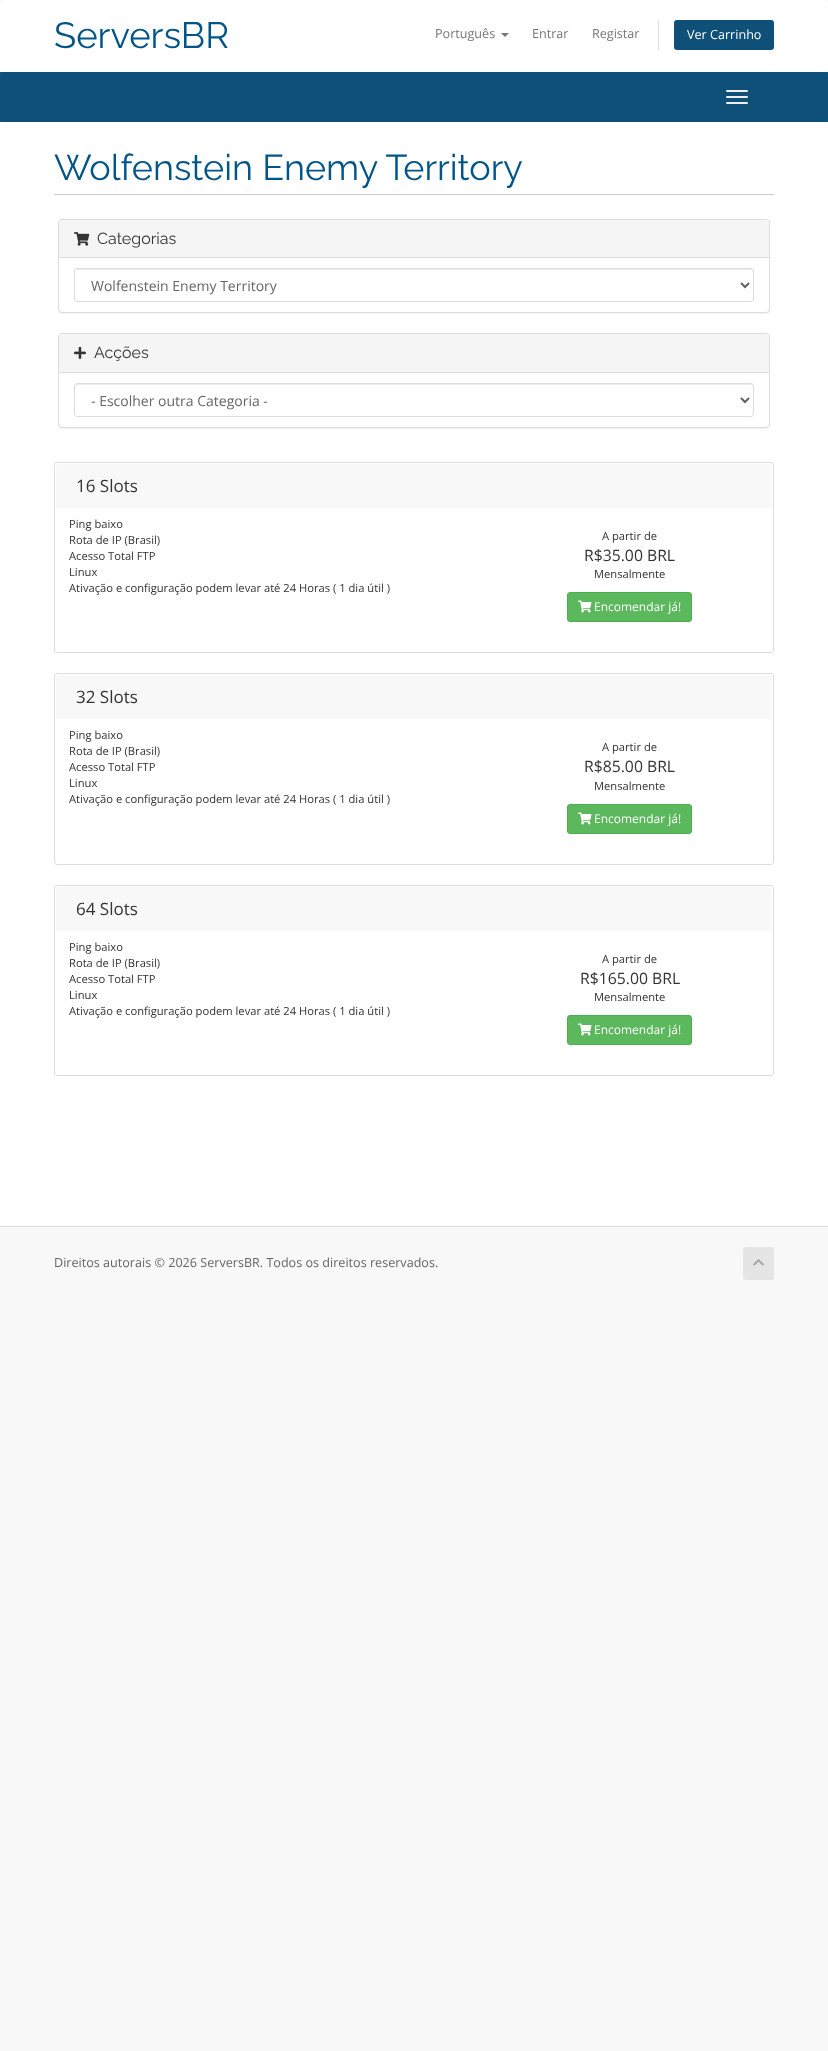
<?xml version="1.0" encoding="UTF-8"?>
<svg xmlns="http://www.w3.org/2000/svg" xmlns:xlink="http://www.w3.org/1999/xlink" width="828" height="2051">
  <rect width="100%" height="100%" fill="#f8f8f8" />
  <path d="M 5 0 h 818 c 3 0 5 2 5 5 v 67 h -828 v -67 c 0 -3 2 -5 5 -5 z" fill="#ffffff" />
  <path d="M 501 33 h 8 l -4 4 z" fill="#777777" />
  <rect x="658" y="20" width="1" height="30" fill="#dddddd" />
  <rect x="674" y="20" width="100" height="30" rx="3" fill="#0e5077" />
  <rect y="72" width="828" height="50" fill="#006687" />
  <rect y="72" width="828" height="50" rx="4" fill="#0e5077" />
  <rect x="726" y="90" width="22" height="2" rx="1" fill="#eeeeee" />
  <rect x="726" y="96" width="22" height="2" rx="1" fill="#eeeeee" />
  <rect x="726" y="102" width="22" height="2" rx="1" fill="#eeeeee" />
  <rect y="122" width="828" height="1104" fill="#ffffff" />
  <rect x="54" y="194" width="720" height="1" fill="#cccccc" />
  <rect x="58" y="220" width="712" height="94" rx="4" fill="#000000" fill-opacity="0.05" filter="blur(0.5px)" />
  <rect x="58.5" y="219.5" width="711" height="93" rx="3.5" fill="#ffffff" stroke="#dddddd" />
  <path d="M 62 220 h 704 c 1.5 0 3 1.5 3 3 v 35 h -710 v -35 c 0 -1.5 1.5 -3 3 -3 z" fill="#f5f5f5" />
  <rect x="59" y="257" width="710" height="1" fill="#dddddd" />
  <image x="74" y="232" width="16" height="14" xlink:href="image1.png" />
  <path d="M 77 270 h 674 c 1 0 2 1 2 2 c 0 -1 0 -3 -2 -3 h -674 c -2 0 -2 2 -2 3 c 0 -1 1 -2 2 -2 z" fill="#ececec" />
  <rect x="74.5" y="268.5" width="679" height="33" rx="2.5" fill="none" stroke="#dddddd" />
  <path d="M 741 283 l 4 4 l 4 -4" fill="none" stroke="#626262" stroke-width="2" />
  <rect x="58" y="334" width="712" height="95" rx="4" fill="#000000" fill-opacity="0.05" filter="blur(0.5px)" />
  <rect x="58.5" y="333.5" width="711" height="94" rx="3.5" fill="#ffffff" stroke="#dddddd" />
  <path d="M 62 334 h 704 c 1.5 0 3 1.5 3 3 v 36 h -710 v -36 c 0 -1.5 1.5 -3 3 -3 z" fill="#f5f5f5" />
  <rect x="59" y="372" width="710" height="1" fill="#dddddd" />
  <image x="74" y="346" width="12" height="13" xlink:href="image2.png" />
  <path d="M 77 385 h 674 c 1 0 2 1 2 2 c 0 -1 0 -3 -2 -3 h -674 c -2 0 -2 2 -2 3 c 0 -1 1 -2 2 -2 z" fill="#ececec" />
  <rect x="74.5" y="383.5" width="679" height="33" rx="2.5" fill="none" stroke="#dddddd" />
  <path d="M 741 398 l 4 4 l 4 -4" fill="none" stroke="#626262" stroke-width="2" />
  <rect x="54.5" y="462.5" width="719" height="190" rx="2.5" fill="none" stroke="#dddddd" />
  <path d="M 59 464 h 710 c 1.5 0 3 1.5 3 3 v 41 h -716 v -41 c 0 -1.5 1.5 -3 3 -3 z" fill="#f8f8f8" />
  <rect x="567.5" y="592.5" width="124" height="29" rx="2.5" fill="#5cb85c" stroke="#4cae4c" />
  <image x="578" y="600" width="14" height="13" xlink:href="image3.png" />
  <rect x="54.5" y="673.5" width="719" height="191" rx="2.5" fill="none" stroke="#dddddd" />
  <path d="M 59 675 h 710 c 1.5 0 3 1.5 3 3 v 41 h -716 v -41 c 0 -1.5 1.5 -3 3 -3 z" fill="#f8f8f8" />
  <rect x="567.5" y="804.5" width="124" height="29" rx="2.5" fill="#5cb85c" stroke="#4cae4c" />
  <image x="578" y="812" width="14" height="13" xlink:href="image3.png" />
  <rect x="54.5" y="885.5" width="719" height="190" rx="2.5" fill="none" stroke="#dddddd" />
  <path d="M 59 887 h 710 c 1.5 0 3 1.5 3 3 v 41 h -716 v -41 c 0 -1.5 1.5 -3 3 -3 z" fill="#f8f8f8" />
  <rect x="567.5" y="1015.5" width="124" height="29" rx="2.5" fill="#5cb85c" stroke="#4cae4c" />
  <image x="578" y="1023" width="14" height="13" xlink:href="image3.png" />
  <rect y="1226" width="828" height="1" fill="#dddddd" />
  <rect x="743" y="1247" width="31" height="33" rx="3" fill="#e5e5e5" />
  <image x="753" y="1259" width="11" height="7" xlink:href="image4.png" />
  <text x="54" y="48" style="font-family: Raleway; font-size: 36.5px; fill: #005588">ServersBR</text>
  <text x="435" y="38" style="font-family: Open Sans; font-size: 12.6px; fill: #777777">Português</text>
  <text x="532" y="38" style="font-family: Open Sans; font-size: 12.6px; fill: #777777">Entrar</text>
  <text x="592" y="38" style="font-family: Open Sans; font-size: 12.6px; fill: #777777">Registar</text>
  <text x="687" y="39" style="font-family: Open Sans; font-size: 12.6px; fill: #ffffff">Ver Carrinho</text>
  <text x="54" y="180" style="font-family: Raleway; font-size: 36px; fill: #005588">Wolfenstein Enemy Territory</text>
  <text x="97" y="244" style="font-family: Raleway; font-size: 16px; fill: #333333">Categorias</text>
  <text x="91" y="291" style="font-family: Open Sans; font-size: 14px; fill: #666666">Wolfenstein Enemy Territory</text>
  <text x="94" y="358" style="font-family: Raleway; font-size: 16px; fill: #333333">Acções</text>
  <text x="91" y="406" style="font-family: Open Sans; font-size: 14px; fill: #666666">- Escolher outra Categoria -</text>
  <text x="76" y="492" style="font-family: Open Sans; font-size: 17px; fill: #333333">16 Slots</text>
  <text x="69" y="528" style="font-family: Open Sans; font-size: 11.2px; fill: #333333">Ping baixo</text>
  <text x="69" y="544" style="font-family: Open Sans; font-size: 11.2px; fill: #333333">Rota de IP (Brasil)</text>
  <text x="69" y="560" style="font-family: Open Sans; font-size: 11.2px; fill: #333333">Acesso Total FTP</text>
  <text x="69" y="576" style="font-family: Open Sans; font-size: 11.2px; fill: #333333">Linux</text>
  <text x="69" y="592" style="font-family: Open Sans; font-size: 11.2px; fill: #333333">Ativação e configuração podem levar até 24 Horas</text>
  <text x="333" y="592" style="font-family: Open Sans; font-size: 11.2px; fill: #333333">( 1 dia útil )</text>
  <text x="602" y="540" style="font-family: Open Sans; font-size: 11.2px; fill: #333333">A partir de</text>
  <text x="584" y="561" style="font-family: Open Sans; font-size: 15.75px; fill: #333333">R$35.00 BRL</text>
  <text x="594" y="578" style="font-family: Open Sans; font-size: 11.2px; fill: #333333">Mensalmente</text>
  <text x="594" y="611" style="font-family: Open Sans; font-size: 12px; fill: #ffffff">Encomendar já!</text>
  <text x="76" y="703" style="font-family: Open Sans; font-size: 17px; fill: #333333">32 Slots</text>
  <text x="69" y="739" style="font-family: Open Sans; font-size: 11.2px; fill: #333333">Ping baixo</text>
  <text x="69" y="755" style="font-family: Open Sans; font-size: 11.2px; fill: #333333">Rota de IP (Brasil)</text>
  <text x="69" y="771" style="font-family: Open Sans; font-size: 11.2px; fill: #333333">Acesso Total FTP</text>
  <text x="69" y="787" style="font-family: Open Sans; font-size: 11.2px; fill: #333333">Linux</text>
  <text x="69" y="803" style="font-family: Open Sans; font-size: 11.2px; fill: #333333">Ativação e configuração podem levar até 24 Horas</text>
  <text x="333" y="803" style="font-family: Open Sans; font-size: 11.2px; fill: #333333">( 1 dia útil )</text>
  <text x="602" y="751" style="font-family: Open Sans; font-size: 11.2px; fill: #333333">A partir de</text>
  <text x="584" y="772" style="font-family: Open Sans; font-size: 15.75px; fill: #333333">R$85.00 BRL</text>
  <text x="594" y="790" style="font-family: Open Sans; font-size: 11.2px; fill: #333333">Mensalmente</text>
  <text x="594" y="823" style="font-family: Open Sans; font-size: 12px; fill: #ffffff">Encomendar já!</text>
  <text x="76" y="915" style="font-family: Open Sans; font-size: 17px; fill: #333333">64 Slots</text>
  <text x="69" y="951" style="font-family: Open Sans; font-size: 11.2px; fill: #333333">Ping baixo</text>
  <text x="69" y="967" style="font-family: Open Sans; font-size: 11.2px; fill: #333333">Rota de IP (Brasil)</text>
  <text x="69" y="983" style="font-family: Open Sans; font-size: 11.2px; fill: #333333">Acesso Total FTP</text>
  <text x="69" y="999" style="font-family: Open Sans; font-size: 11.2px; fill: #333333">Linux</text>
  <text x="69" y="1015" style="font-family: Open Sans; font-size: 11.2px; fill: #333333">Ativação e configuração podem levar até 24 Horas</text>
  <text x="333" y="1015" style="font-family: Open Sans; font-size: 11.2px; fill: #333333">( 1 dia útil )</text>
  <text x="602" y="963" style="font-family: Open Sans; font-size: 11.2px; fill: #333333">A partir de</text>
  <text x="580" y="984" style="font-family: Open Sans; font-size: 15.75px; fill: #333333">R$165.00 BRL</text>
  <text x="594" y="1001" style="font-family: Open Sans; font-size: 11.2px; fill: #333333">Mensalmente</text>
  <text x="594" y="1034" style="font-family: Open Sans; font-size: 12px; fill: #ffffff">Encomendar já!</text>
  <text x="54" y="1267" style="font-family: Open Sans; font-size: 12.6px; fill: #666666">Direitos autorais © 2026 ServersBR. Todos os direitos reservados.</text>
</svg>
